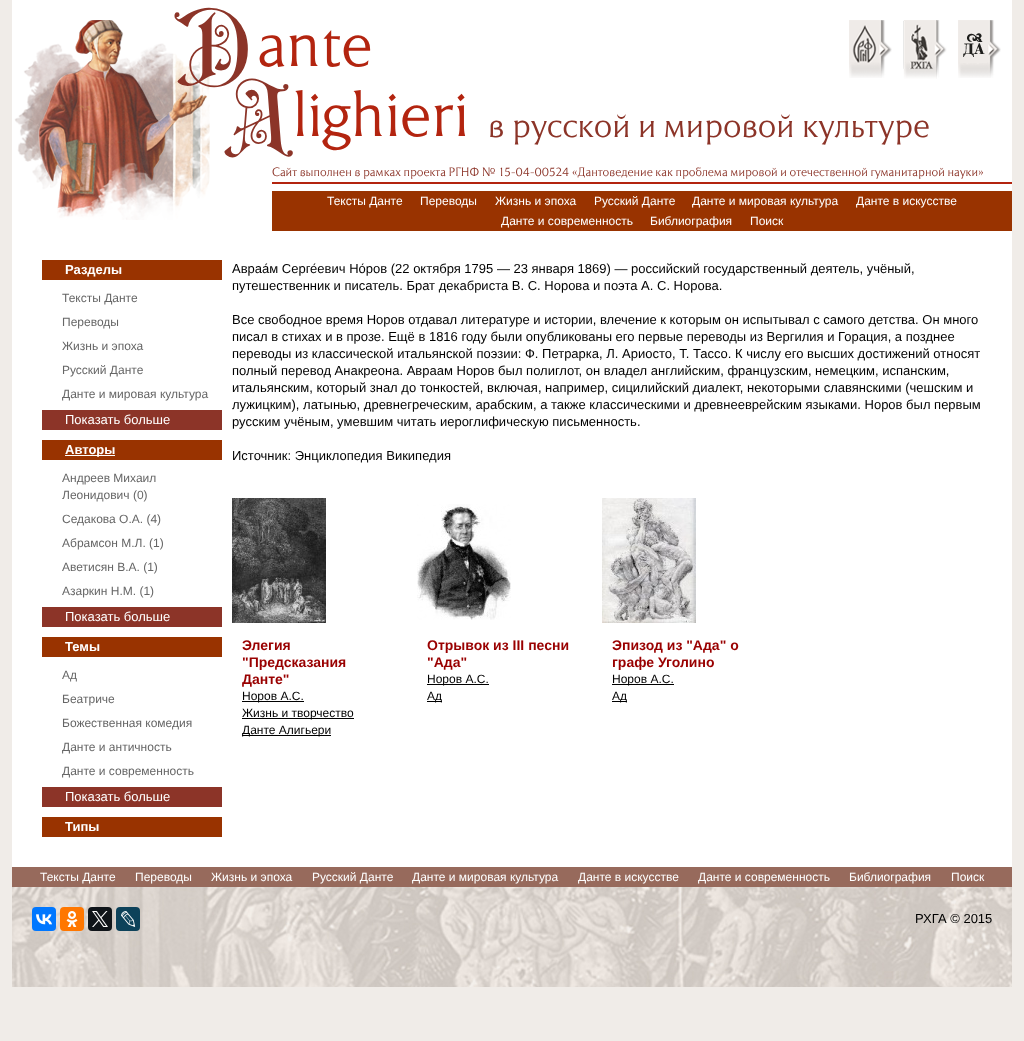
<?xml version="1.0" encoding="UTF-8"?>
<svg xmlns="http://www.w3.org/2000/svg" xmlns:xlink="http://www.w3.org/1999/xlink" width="1024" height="1041">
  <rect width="100%" height="100%" fill="#f0ece8" />
  <rect x="12" width="1000" height="867" fill="#ffffff" />
  <image x="14" y="20" width="196" height="200" xlink:href="image1.png" />
  <image x="849" y="20" width="43" height="58" xlink:href="image2.png" />
  <image x="903" y="20" width="44" height="59" xlink:href="image3.png" />
  <image x="958" y="20" width="43" height="58" xlink:href="image4.png" />
  <rect x="272" y="182" width="740" height="2" fill="#b3240f" />
  <rect x="272" y="191" width="740" height="40" fill="#993300" />
  <rect x="42" y="260" width="180" height="20" fill="#993300" />
  <rect x="42" y="410" width="180" height="20" fill="#8c3428" />
  <rect x="42" y="440" width="180" height="20" fill="#993300" />
  <rect x="65" y="455" width="50" height="1" fill="#ffffff" />
  <rect x="42" y="607" width="180" height="20" fill="#8c3428" />
  <rect x="42" y="637" width="180" height="20" fill="#993300" />
  <rect x="42" y="787" width="180" height="20" fill="#8c3428" />
  <rect x="42" y="817" width="180" height="20" fill="#993300" />
  <image x="232" y="498" width="94" height="125" xlink:href="image5.png" />
  <rect x="242" y="701" width="62" height="1" fill="#000000" />
  <rect x="242" y="718" width="112" height="1" fill="#000000" />
  <rect x="242" y="735" width="89" height="1" fill="#000000" />
  <image x="417" y="504" width="94" height="116" xlink:href="image6.png" />
  <rect x="427" y="684" width="62" height="1" fill="#000000" />
  <rect x="427" y="701" width="15" height="1" fill="#000000" />
  <image x="602" y="498" width="94" height="125" xlink:href="image7.png" />
  <rect x="612" y="684" width="62" height="1" fill="#000000" />
  <rect x="612" y="701" width="15" height="1" fill="#000000" />
  <rect x="12" y="867" width="1000" height="20" fill="#976a5c" />
  <image x="12" y="887" width="1000" height="100" xlink:href="image8.png" />
  <rect x="32" y="907" width="24" height="24" rx="4" fill="#0077ff" />
  <image x="36" y="914" width="16" height="11" xlink:href="image9.png" />
  <rect x="60" y="907" width="24" height="24" rx="4" fill="#ff7700" />
  <image x="66" y="911" width="12" height="16" xlink:href="image10.png" />
  <rect x="88" y="907" width="24" height="24" rx="4" fill="#0f1419" />
  <image x="92" y="911" width="16" height="16" xlink:href="image11.png" />
  <rect x="116" y="907" width="24" height="24" rx="4" fill="#0d425a" />
  <image x="121" y="911" width="15" height="16" xlink:href="image12.png" />
  <text x="172" y="86" style="font-family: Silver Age; font-size: 98px; fill: #8c3428">D</text>
  <text x="257" y="66" style="font-family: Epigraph; font-size: 67px; fill: #b3240f">ante</text>
  <text x="222" y="156" style="font-family: Silver Age; font-size: 98px; fill: #8c3428">A</text>
  <text x="292" y="136" style="font-family: Epigraph; font-size: 67px; fill: #b3240f">lighieri</text>
  <text x="488" y="137" style="font-family: Epigraph; font-size: 36px; fill: #8c3428">в русской и мировой культуре</text>
  <text x="272" y="176" style="font-family: Epigraph; font-size: 13px; fill: #8c3428">Сайт выполнен в рамках проекта РГНФ № 15-04-00524 «Дантоведение как проблема мировой и отечественной гуманитарной науки»</text>
  <text x="327" y="205" style="font-family: Liberation Sans; font-size: 12px; fill: #ffffff">Тексты Данте</text>
  <text x="420" y="205" style="font-family: Liberation Sans; font-size: 12px; fill: #ffffff">Переводы</text>
  <text x="495" y="205" style="font-family: Liberation Sans; font-size: 12px; fill: #ffffff">Жизнь и эпоха</text>
  <text x="594" y="205" style="font-family: Liberation Sans; font-size: 12px; fill: #ffffff">Русский Данте</text>
  <text x="692" y="205" style="font-family: Liberation Sans; font-size: 12px; fill: #ffffff">Данте и мировая культура</text>
  <text x="856" y="205" style="font-family: Liberation Sans; font-size: 12px; fill: #ffffff">Данте в искусстве</text>
  <text x="501" y="225" style="font-family: Liberation Sans; font-size: 12px; fill: #ffffff">Данте и современность</text>
  <text x="650" y="225" style="font-family: Liberation Sans; font-size: 12px; fill: #ffffff">Библиография</text>
  <text x="750" y="225" style="font-family: Liberation Sans; font-size: 12px; fill: #ffffff">Поиск</text>
  <text x="65" y="274" style="font-family: Liberation Sans; font-size: 13px; font-weight: bold; fill: #ffffff">Разделы</text>
  <text x="62" y="302" style="font-family: Liberation Sans; font-size: 12px; fill: #666666">Тексты Данте</text>
  <text x="62" y="326" style="font-family: Liberation Sans; font-size: 12px; fill: #666666">Переводы</text>
  <text x="62" y="350" style="font-family: Liberation Sans; font-size: 12px; fill: #666666">Жизнь и эпоха</text>
  <text x="62" y="374" style="font-family: Liberation Sans; font-size: 12px; fill: #666666">Русский Данте</text>
  <text x="62" y="398" style="font-family: Liberation Sans; font-size: 12px; fill: #666666">Данте и мировая культура</text>
  <text x="65" y="424" style="font-family: Liberation Sans; font-size: 13px; fill: #ffffff">Показать больше</text>
  <text x="65" y="454" style="font-family: Liberation Sans; font-size: 13px; font-weight: bold; fill: #ffffff">Авторы</text>
  <text x="62" y="482" style="font-family: Liberation Sans; font-size: 12px; fill: #666666">Андреев Михаил</text>
  <text x="62" y="499" style="font-family: Liberation Sans; font-size: 12px; fill: #666666">Леонидович (0)</text>
  <text x="62" y="523" style="font-family: Liberation Sans; font-size: 12px; fill: #666666">Седакова О.А. (4)</text>
  <text x="62" y="547" style="font-family: Liberation Sans; font-size: 12px; fill: #666666">Абрамсон М.Л. (1)</text>
  <text x="62" y="571" style="font-family: Liberation Sans; font-size: 12px; fill: #666666">Аветисян В.А. (1)</text>
  <text x="62" y="595" style="font-family: Liberation Sans; font-size: 12px; fill: #666666">Азаркин Н.М. (1)</text>
  <text x="65" y="621" style="font-family: Liberation Sans; font-size: 13px; fill: #ffffff">Показать больше</text>
  <text x="65" y="651" style="font-family: Liberation Sans; font-size: 13px; font-weight: bold; fill: #ffffff">Темы</text>
  <text x="62" y="679" style="font-family: Liberation Sans; font-size: 12px; fill: #666666">Ад</text>
  <text x="62" y="703" style="font-family: Liberation Sans; font-size: 12px; fill: #666666">Беатриче</text>
  <text x="62" y="727" style="font-family: Liberation Sans; font-size: 12px; fill: #666666">Божественная комедия</text>
  <text x="62" y="751" style="font-family: Liberation Sans; font-size: 12px; fill: #666666">Данте и античность</text>
  <text x="62" y="775" style="font-family: Liberation Sans; font-size: 12px; fill: #666666">Данте и современность</text>
  <text x="65" y="801" style="font-family: Liberation Sans; font-size: 13px; fill: #ffffff">Показать больше</text>
  <text x="65" y="831" style="font-family: Liberation Sans; font-size: 13px; font-weight: bold; fill: #ffffff">Типы</text>
  <text x="232" y="273" style="font-family: Liberation Sans; font-size: 13px; fill: #000000">Авраа́м Серге́евич Но́ров (22 октября 1795 — 23 января 1869) — российский государственный деятель, учёный,</text>
  <text x="232" y="290" style="font-family: Liberation Sans; font-size: 13px; fill: #000000">путешественник и писатель. Брат декабриста В. С. Норова и поэта А. С. Норова.</text>
  <text x="232" y="324" style="font-family: Liberation Sans; font-size: 13px; fill: #000000">Все свободное время Норов отдавал литературе и истории, влечение к которым он испытывал с самого детства. Он много</text>
  <text x="232" y="341" style="font-family: Liberation Sans; font-size: 13px; fill: #000000">писал в стихах и в прозе. Ещё в 1816 году были опубликованы его первые переводы из Вергилия и Горация, а позднее</text>
  <text x="232" y="358" style="font-family: Liberation Sans; font-size: 13px; fill: #000000">переводы из классической итальянской поэзии: Ф. Петрарка, Л. Ариосто, Т. Тассо. К числу его высших достижений относят</text>
  <text x="232" y="375" style="font-family: Liberation Sans; font-size: 13px; fill: #000000">полный перевод Анакреона. Авраам Норов был полиглот, он владел английским, французским, немецким, испанским,</text>
  <text x="232" y="392" style="font-family: Liberation Sans; font-size: 13px; fill: #000000">итальянским, который знал до тонкостей, включая, например, сицилийский диалект, некоторыми славянскими (чешским и</text>
  <text x="232" y="409" style="font-family: Liberation Sans; font-size: 13px; fill: #000000">лужицким), латынью, древнегреческим, арабским, а также классическими и древнееврейским языками. Норов был первым</text>
  <text x="232" y="426" style="font-family: Liberation Sans; font-size: 13px; fill: #000000">русским учёным, умевшим читать иероглифическую письменность.</text>
  <text x="232" y="460" style="font-family: Liberation Sans; font-size: 13px; fill: #000000">Источник: Энциклопедия Википедия</text>
  <text x="242" y="650" style="font-family: Liberation Sans; font-size: 14px; font-weight: bold; fill: #990000">Элегия</text>
  <text x="242" y="667" style="font-family: Liberation Sans; font-size: 14px; font-weight: bold; fill: #990000">"Предсказания</text>
  <text x="242" y="684" style="font-family: Liberation Sans; font-size: 14px; font-weight: bold; fill: #990000">Данте"</text>
  <text x="242" y="700" style="font-family: Liberation Sans; font-size: 12px; fill: #000000">Норов А.С.</text>
  <text x="242" y="717" style="font-family: Liberation Sans; font-size: 12px; fill: #000000">Жизнь и творчество</text>
  <text x="242" y="734" style="font-family: Liberation Sans; font-size: 12px; fill: #000000">Данте Алигьери</text>
  <text x="427" y="650" style="font-family: Liberation Sans; font-size: 14px; font-weight: bold; fill: #990000">Отрывок из III песни</text>
  <text x="427" y="667" style="font-family: Liberation Sans; font-size: 14px; font-weight: bold; fill: #990000">"Ада"</text>
  <text x="427" y="683" style="font-family: Liberation Sans; font-size: 12px; fill: #000000">Норов А.С.</text>
  <text x="427" y="700" style="font-family: Liberation Sans; font-size: 12px; fill: #000000">Ад</text>
  <text x="612" y="650" style="font-family: Liberation Sans; font-size: 14px; font-weight: bold; fill: #990000">Эпизод из "Ада" о</text>
  <text x="612" y="667" style="font-family: Liberation Sans; font-size: 14px; font-weight: bold; fill: #990000">графе Уголино</text>
  <text x="612" y="683" style="font-family: Liberation Sans; font-size: 12px; fill: #000000">Норов А.С.</text>
  <text x="612" y="700" style="font-family: Liberation Sans; font-size: 12px; fill: #000000">Ад</text>
  <text x="40" y="881" style="font-family: Liberation Sans; font-size: 12px; fill: #ffffff">Тексты Данте</text>
  <text x="135" y="881" style="font-family: Liberation Sans; font-size: 12px; fill: #ffffff">Переводы</text>
  <text x="211" y="881" style="font-family: Liberation Sans; font-size: 12px; fill: #ffffff">Жизнь и эпоха</text>
  <text x="312" y="881" style="font-family: Liberation Sans; font-size: 12px; fill: #ffffff">Русский Данте</text>
  <text x="412" y="881" style="font-family: Liberation Sans; font-size: 12px; fill: #ffffff">Данте и мировая культура</text>
  <text x="578" y="881" style="font-family: Liberation Sans; font-size: 12px; fill: #ffffff">Данте в искусстве</text>
  <text x="698" y="881" style="font-family: Liberation Sans; font-size: 12px; fill: #ffffff">Данте и современность</text>
  <text x="849" y="881" style="font-family: Liberation Sans; font-size: 12px; fill: #ffffff">Библиография</text>
  <text x="951" y="881" style="font-family: Liberation Sans; font-size: 12px; fill: #ffffff">Поиск</text>
  <text x="915" y="923" style="font-family: Liberation Sans; font-size: 13px; fill: #000000">РХГА © 2015</text>
</svg>
